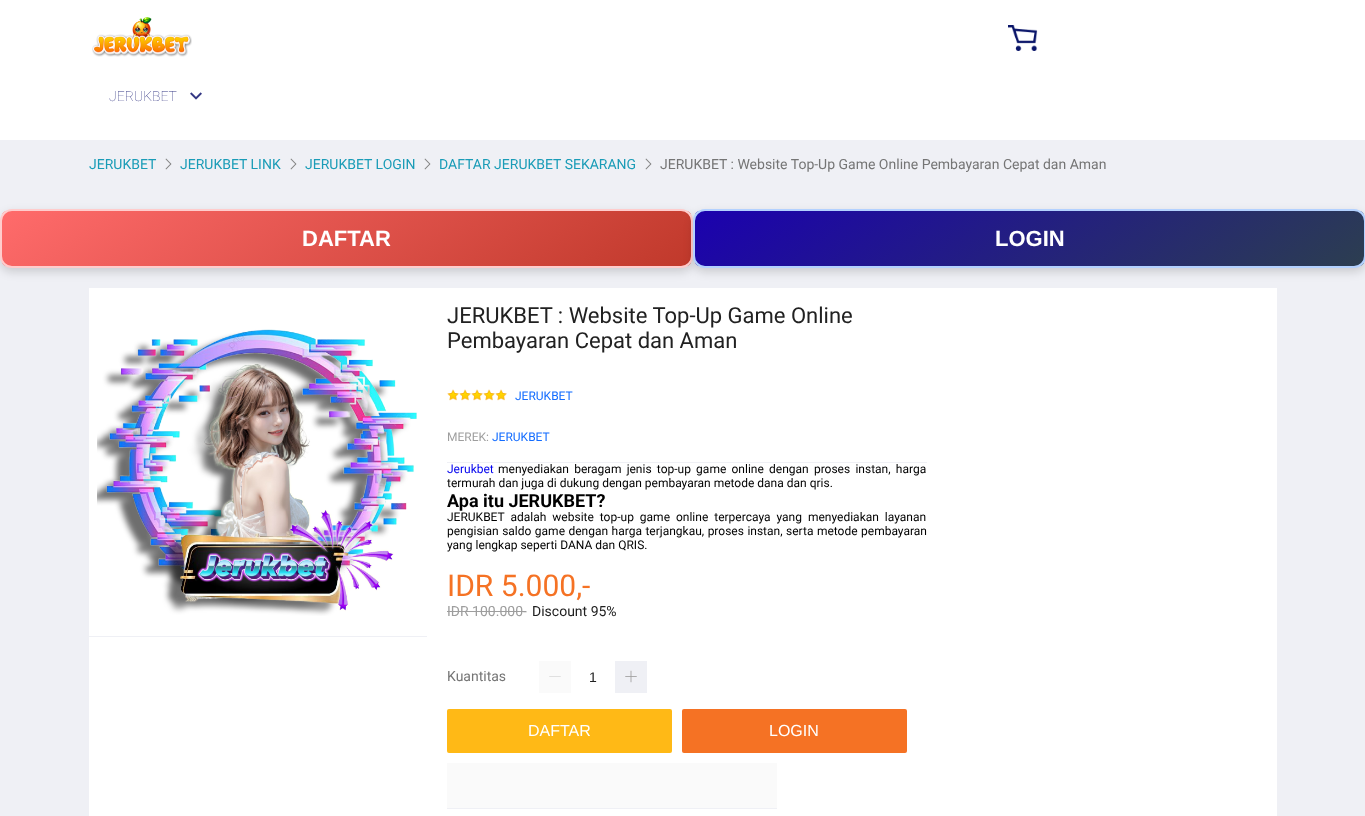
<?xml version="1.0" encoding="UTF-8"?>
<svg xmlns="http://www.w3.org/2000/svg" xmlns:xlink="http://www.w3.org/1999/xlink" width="1365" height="816">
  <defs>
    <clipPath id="clip1"><rect y="209" width="693" height="59" rx="12" /></clipPath>
    <linearGradient id="g1" gradientUnits="userSpaceOnUse" x1="220" y1="58" x2="473" y2="419"><stop offset="0" stop-color="#ff6b6b" /><stop offset="1" stop-color="#c0392b" /></linearGradient>
    <clipPath id="clip2"><rect x="693" y="209" width="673" height="59" rx="12" /></clipPath>
    <linearGradient id="g2" gradientUnits="userSpaceOnUse" x1="907" y1="63" x2="1152" y2="414"><stop offset="0" stop-color="#1b01af" /><stop offset="1" stop-color="#2c3e50" /></linearGradient>
  </defs>
  <rect width="100%" height="100%" fill="#eff0f5" />
  <rect width="1365" height="140" fill="#ffffff" />
  <image x="92" y="17" width="100" height="40" xlink:href="image1.png" />
  <image x="1008" y="25" width="30" height="26" xlink:href="image2.png" />
  <image x="190" y="92" width="12" height="8" xlink:href="image3.png" />
  <image x="165" y="158" width="7" height="12" xlink:href="image4.png" />
  <image x="290" y="158" width="7" height="12" xlink:href="image4.png" />
  <image x="424" y="158" width="7" height="12" xlink:href="image4.png" />
  <image x="645" y="158" width="7" height="12" xlink:href="image4.png" />
  <rect y="213" width="693" height="59" rx="12" fill="#000000" fill-opacity="0.15" filter="blur(5px)" />
  <g clip-path="url(#clip1)">
    <rect x="2" y="211" width="689" height="55" fill="url(#g1)" />
  </g>
  <rect x="1" y="210" width="691" height="57" rx="11" fill="none" stroke="#ffcccc" stroke-width="2" />
  <rect x="693" y="213" width="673" height="59" rx="12" fill="#000000" fill-opacity="0.15" filter="blur(5px)" />
  <g clip-path="url(#clip2)">
    <rect x="695" y="211" width="669" height="55" fill="url(#g2)" />
  </g>
  <rect x="694" y="210" width="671" height="57" rx="11" fill="none" stroke="#b3d1ff" stroke-width="2" />
  <rect x="89" y="288" width="1188" height="528" fill="#ffffff" />
  <rect x="89" y="636" width="338" height="1" fill="#eff0f5" />
  <image x="97" y="329" width="320" height="287" xlink:href="image5.png" />
  <image x="447" y="389" width="12" height="12" xlink:href="image6.png" />
  <image x="459" y="389" width="12" height="12" xlink:href="image6.png" />
  <image x="471" y="389" width="12" height="12" xlink:href="image6.png" />
  <image x="483" y="389" width="12" height="12" xlink:href="image6.png" />
  <image x="495" y="389" width="12" height="12" xlink:href="image6.png" />
  <rect x="447" y="462" width="480" height="1" fill="#eff0f5" />
  <rect x="447" y="611" width="79" height="1" fill="#9e9e9e" />
  <rect x="539" y="661" width="32" height="32" fill="#fafafa" />
  <image x="549" y="676" width="12" height="1" xlink:href="image7.png" />
  <rect x="615" y="661" width="32" height="32" fill="#eff0f5" />
  <image x="625" y="670" width="12" height="13" xlink:href="image8.png" />
  <rect x="447" y="709" width="225" height="44" rx="2" fill="#ffb916" />
  <rect x="682" y="709" width="225" height="44" rx="2" fill="#f57224" />
  <rect x="447" y="763" width="330" height="45" fill="#fafafa" />
  <rect x="447" y="808" width="330" height="1" fill="#eff0f5" />
  <text x="109" y="101" style="font-family: Roboto; font-size: 14px; font-weight: 100; fill: #333683">JERUKBET</text>
  <text x="89" y="169" style="font-family: Roboto; font-size: 14px; fill: #1a9cb7">JERUKBET</text>
  <text x="180" y="169" style="font-family: Roboto; font-size: 14px; fill: #1a9cb7">JERUKBET LINK</text>
  <text x="305" y="169" style="font-family: Roboto; font-size: 14px; fill: #1a9cb7">JERUKBET LOGIN</text>
  <text x="439" y="169" style="font-family: Roboto; font-size: 14px; fill: #1a9cb7">DAFTAR JERUKBET SEKARANG</text>
  <text x="660" y="169" style="font-family: Roboto; font-size: 14px; fill: #757575">JERUKBET : Website Top-Up Game Online Pembayaran Cepat dan Aman</text>
  <text x="302" y="246" style="font-family: Liberation Sans; font-size: 22px; font-weight: bold; fill: #ffffff">DAFTAR</text>
  <text x="995" y="246" style="font-family: Liberation Sans; font-size: 22px; font-weight: bold; fill: #ffffff">LOGIN</text>
  <text x="447" y="323" style="font-family: Roboto; font-size: 22px; fill: #212121">JERUKBET : Website Top-Up Game Online</text>
  <text x="447" y="348" style="font-family: Roboto; font-size: 22px; fill: #212121">Pembayaran Cepat dan Aman</text>
  <text x="515" y="400" style="font-family: Roboto; font-size: 12px; fill: #136cff">JERUKBET</text>
  <text x="447" y="441" style="font-family: Roboto; font-size: 12px; fill: #9e9e9e">MEREK:</text>
  <text x="492" y="441" style="font-family: Roboto; font-size: 12px; fill: #136cff">JERUKBET</text>
  <text x="447" y="473" style="font-family: Roboto; font-size: 12px; fill: #0000ee">Jerukbet</text>
  <text x="498" y="473" word-spacing="2.25" style="font-family: Roboto; font-size: 12px; fill: #000000">menyediakan beragam jenis top-up game online dengan proses instan, harga</text>
  <text x="447" y="487" style="font-family: Roboto; font-size: 12px; fill: #000000">termurah dan juga di dukung dengan pembayaran metode dana dan qris.</text>
  <text x="447" y="507" style="font-family: Roboto; font-size: 18px; font-weight: bold; fill: #000000">Apa itu JERUKBET?</text>
  <text x="447" y="521" word-spacing="3" style="font-family: Roboto; font-size: 12px; fill: #000000">JERUKBET adalah website top-up game online terpercaya yang menyediakan layanan</text>
  <text x="447" y="535" word-spacing="0.5" style="font-family: Roboto; font-size: 12px; fill: #000000">pengisian saldo game dengan harga terjangkau, proses instan, serta metode pembayaran</text>
  <text x="447" y="549" style="font-family: Roboto; font-size: 12px; fill: #000000">yang lengkap seperti DANA dan QRIS.</text>
  <text x="447" y="596" style="font-family: Roboto; font-size: 30px; fill: #f57224">IDR 5.000,-</text>
  <text x="447" y="616" style="font-family: Roboto; font-size: 14px; fill: #9e9e9e">IDR 100.000-</text>
  <text x="532" y="616" style="font-family: Roboto; font-size: 14px; fill: #212121">Discount 95%</text>
  <text x="447" y="681" style="font-family: Roboto; font-size: 14px; fill: #757575">Kuantitas</text>
  <text x="589" y="682" style="font-family: Liberation Sans; font-size: 14px; fill: #212121">1</text>
  <text x="528" y="736" style="font-family: Liberation Sans; font-size: 16px; fill: #ffffff">DAFTAR</text>
  <text x="769" y="736" style="font-family: Liberation Sans; font-size: 16px; fill: #ffffff">LOGIN</text>
</svg>
